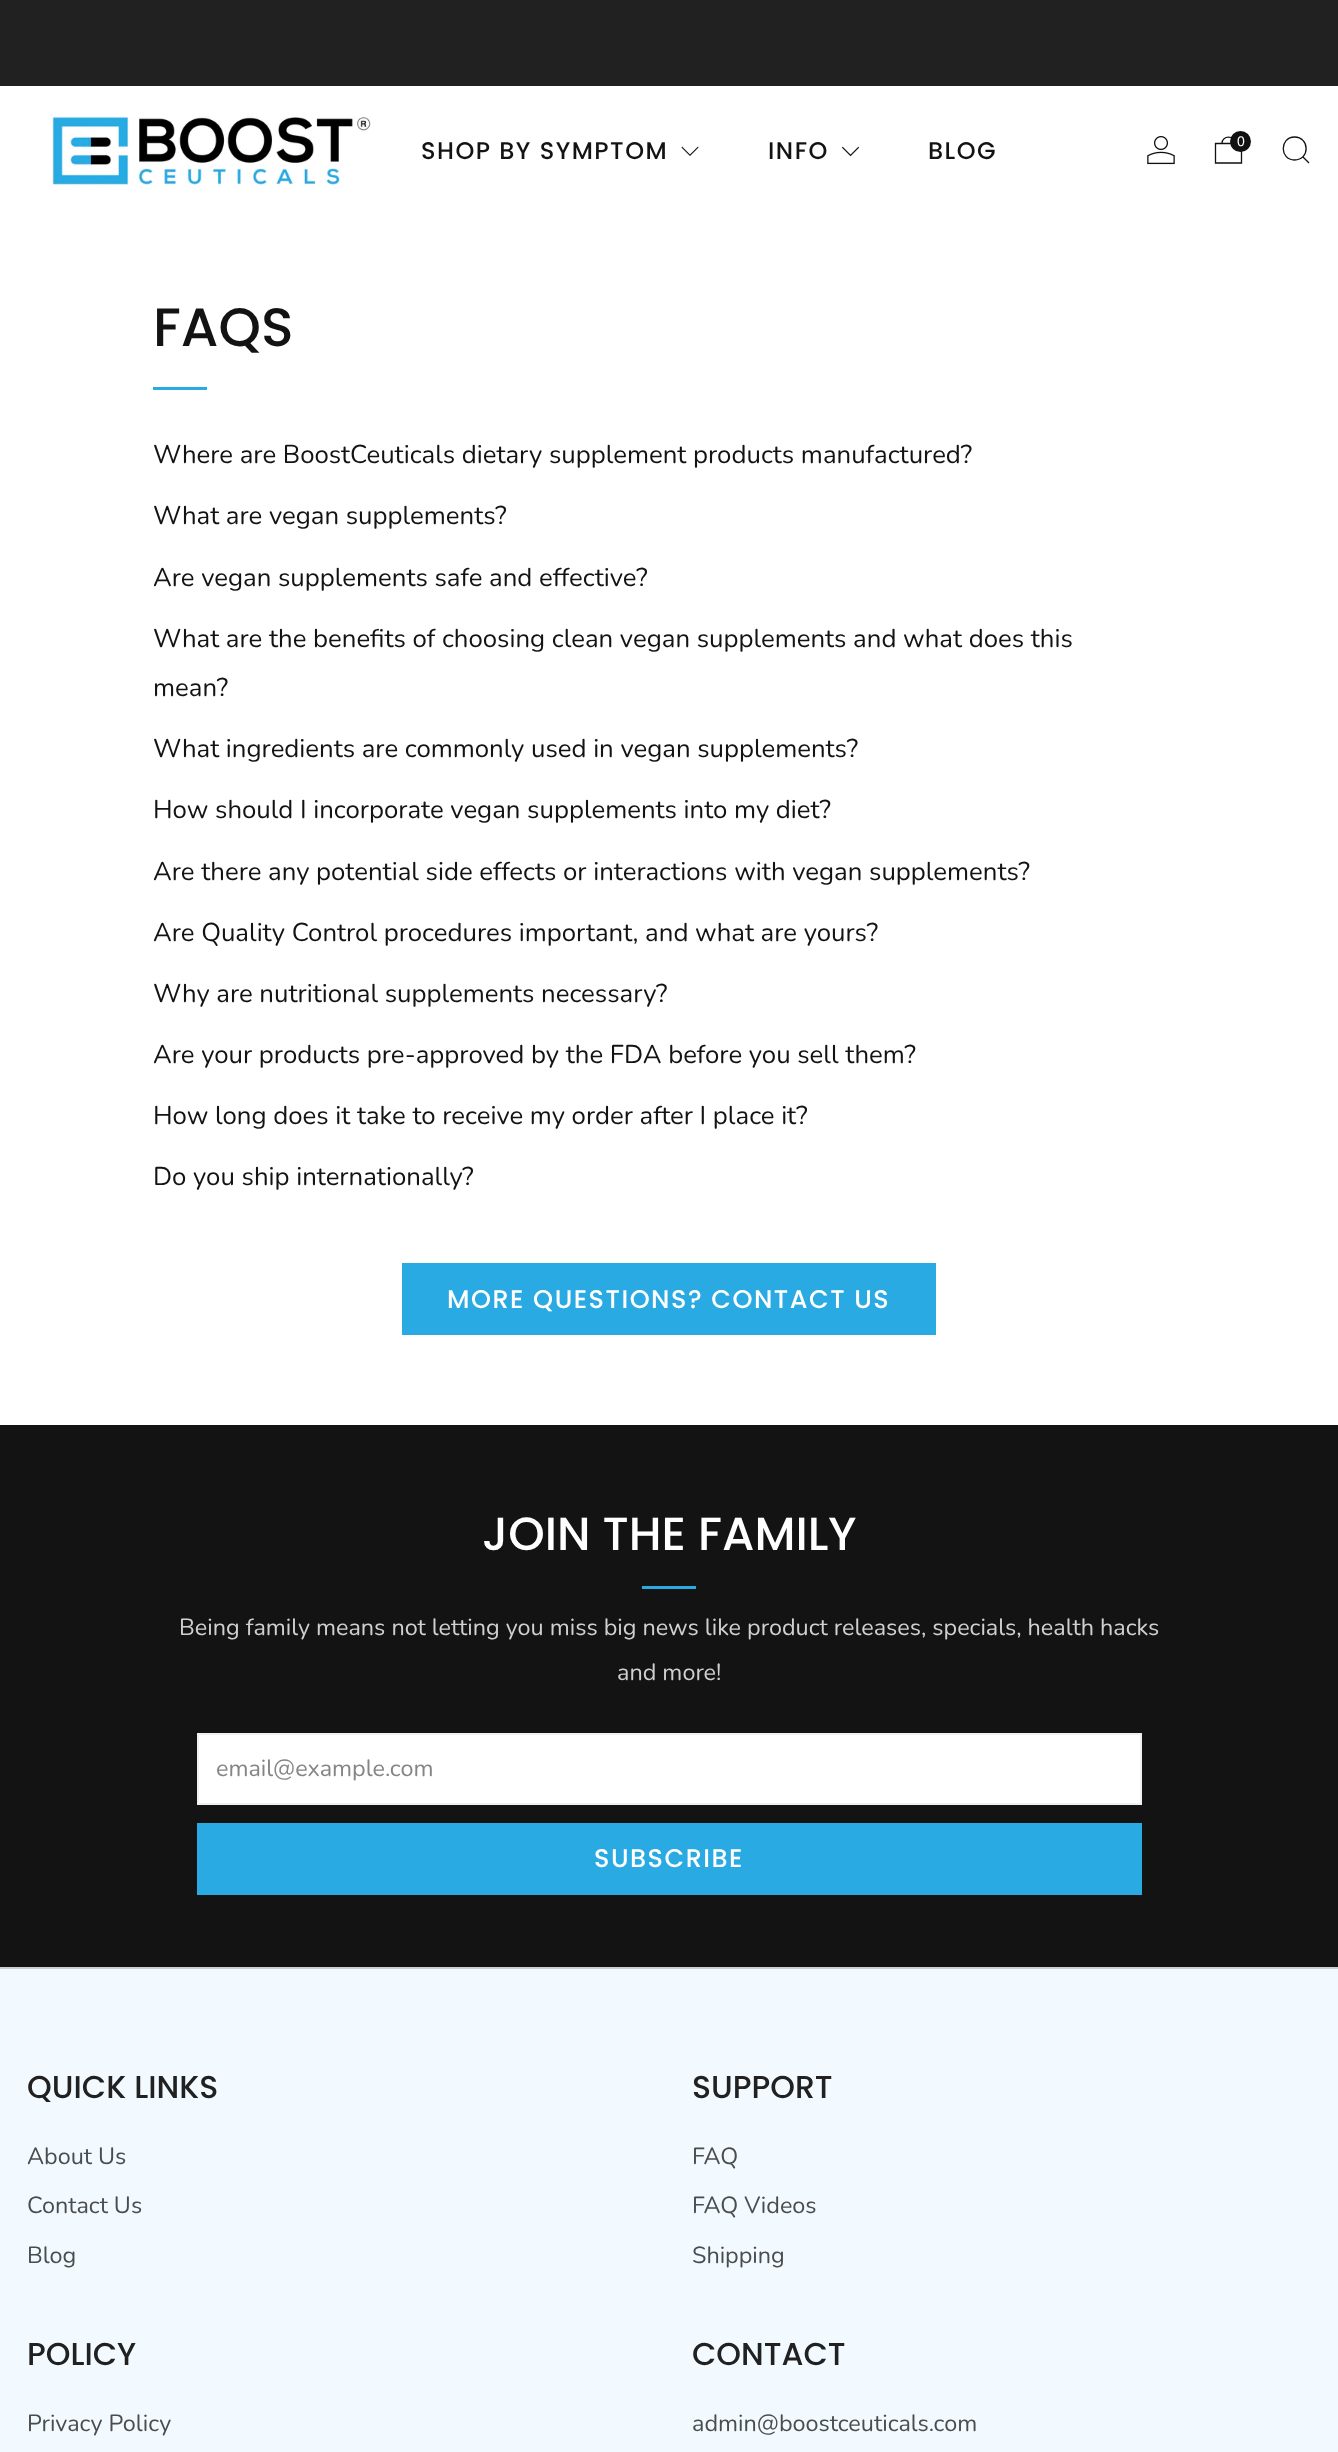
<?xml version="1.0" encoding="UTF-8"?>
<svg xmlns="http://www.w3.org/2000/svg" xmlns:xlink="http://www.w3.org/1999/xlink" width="1338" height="2452">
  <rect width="100%" height="100%" fill="#ffffff" />
  <rect width="1338" height="86" fill="#212121" />
  <image x="51" y="116" width="320" height="73" xlink:href="image1.png" />
  <path d="M 682 146.5 l -0.5 1 l 8.5 8.5 l 8.5 -8.5 l -0.5 -1 l -8 8 z" fill="#111111" />
  <image x="841" y="146" width="19" height="11" xlink:href="image2.png" />
  <image x="1147" y="136" width="28" height="29" xlink:href="image3.png" />
  <path d="M 1215.5 143.5 h 26 v 19.5 h -26 z m 19.5 0 c 0 -8.5 -13 -8.5 -13 0" fill="none" stroke="#111111" stroke-width="1.3" />
  <circle cx="1240.5" cy="141.5" r="10.5" fill="#111111" />
  <path d="M 1294.5 160 c 15.5 0 15.5 -23 0 -23 c -15 0 -15 23 0 23 z m 8.5 -3 l 6 6" fill="none" stroke="#111111" stroke-width="1.3" />
  <rect x="153" y="387" width="54" height="3" fill="#29aae3" />
  <rect x="402" y="1263" width="534" height="72" fill="#29aae3" />
  <rect y="1425" width="1338" height="542" fill="#131313" />
  <rect x="642" y="1586" width="54" height="3" fill="#29aae3" />
  <rect x="198" y="1734" width="943" height="70" fill="#ffffff" stroke="#f0f0f0" stroke-width="2" />
  <rect x="197" y="1823" width="945" height="72" fill="#29aae3" />
  <rect y="1969" width="1338" height="483" fill="#f2faff" />
  <rect y="1967" width="1338" height="2" fill="#c8cfd3" />
  <text x="421" y="159" style="font-family: Poppins; font-size: 24px; font-weight: 500; letter-spacing: 1.5px; fill: #131313">SHOP BY SYMPTOM</text>
  <text x="768" y="159" style="font-family: Poppins; font-size: 24px; font-weight: 500; letter-spacing: 1.5px; fill: #131313">INFO</text>
  <text x="928" y="159" style="font-family: Poppins; font-size: 24px; font-weight: 500; letter-spacing: 1.5px; fill: #131313">BLOG</text>
  <text x="1237" y="146" style="font-family: Liberation Sans; font-size: 14px; fill: #ffffff">0</text>
  <text x="153" y="346" style="font-family: Poppins; font-size: 54px; font-weight: 500; fill: #131313">FAQS</text>
  <text x="153" y="463" style="font-family: Nunito; font-size: 25.75px; fill: #131313">Where are BoostCeuticals dietary supplement products manufactured?</text>
  <text x="153" y="524" style="font-family: Nunito; font-size: 25.75px; fill: #131313">What are vegan supplements?</text>
  <text x="153" y="586" style="font-family: Nunito; font-size: 25.75px; fill: #131313">Are vegan supplements safe and effective?</text>
  <text x="153" y="647" style="font-family: Nunito; font-size: 25.75px; fill: #131313">What are the benefits of choosing clean vegan supplements and what does this</text>
  <text x="153" y="696" style="font-family: Nunito; font-size: 25.75px; fill: #131313">mean?</text>
  <text x="153" y="757" style="font-family: Nunito; font-size: 25.75px; fill: #131313">What ingredients are commonly used in vegan supplements?</text>
  <text x="153" y="818" style="font-family: Nunito; font-size: 25.75px; fill: #131313">How should I incorporate vegan supplements into my diet?</text>
  <text x="153" y="880" style="font-family: Nunito; font-size: 25.75px; fill: #131313">Are there any potential side effects or interactions with vegan supplements?</text>
  <text x="153" y="941" style="font-family: Nunito; font-size: 25.75px; fill: #131313">Are Quality Control procedures important, and what are yours?</text>
  <text x="153" y="1002" style="font-family: Nunito; font-size: 25.75px; fill: #131313">Why are nutritional supplements necessary?</text>
  <text x="153" y="1063" style="font-family: Nunito; font-size: 25.75px; fill: #131313">Are your products pre-approved by the FDA before you sell them?</text>
  <text x="153" y="1124" style="font-family: Nunito; font-size: 25.75px; fill: #131313">How long does it take to receive my order after I place it?</text>
  <text x="153" y="1185" style="font-family: Nunito; font-size: 25.75px; fill: #131313">Do you ship internationally?</text>
  <text x="447" y="1308" style="font-family: Poppins; font-size: 25.5px; font-weight: 500; letter-spacing: 1.5px; fill: #ffffff">MORE QUESTIONS? CONTACT US</text>
  <text x="482" y="1550" style="font-family: Poppins; font-size: 46.5px; font-weight: 500; fill: #ffffff">JOIN THE FAMILY</text>
  <text x="179" y="1635" style="font-family: Nunito; font-size: 23.4px; fill: #d0d0d0">Being family means not letting you miss big news like product releases, specials, health hacks</text>
  <text x="617" y="1680" style="font-family: Nunito; font-size: 23.4px; fill: #d0d0d0">and more!</text>
  <text x="216" y="1776" style="font-family: Nunito; font-size: 23.4px; fill: #858585">email@example.com</text>
  <text x="594" y="1867" style="font-family: Poppins; font-size: 25.5px; font-weight: 500; letter-spacing: 1.5px; fill: #ffffff">SUBSCRIBE</text>
  <text x="27" y="2098" style="font-family: Poppins; font-size: 31.5px; font-weight: 500; fill: #212121">QUICK LINKS</text>
  <text x="27" y="2164" style="font-family: Nunito; font-size: 23.4px; fill: #4b4c4d">About Us</text>
  <text x="27" y="2213" style="font-family: Nunito; font-size: 23.4px; fill: #4b4c4d">Contact Us</text>
  <text x="27" y="2263" style="font-family: Nunito; font-size: 23.4px; fill: #4b4c4d">Blog</text>
  <text x="692" y="2098" style="font-family: Poppins; font-size: 31.5px; font-weight: 500; fill: #212121">SUPPORT</text>
  <text x="692" y="2164" style="font-family: Nunito; font-size: 23.4px; fill: #4b4c4d">FAQ</text>
  <text x="692" y="2213" style="font-family: Nunito; font-size: 23.4px; fill: #4b4c4d">FAQ Videos</text>
  <text x="692" y="2263" style="font-family: Nunito; font-size: 23.4px; fill: #4b4c4d">Shipping</text>
  <text x="27" y="2365" style="font-family: Poppins; font-size: 31.5px; font-weight: 500; fill: #212121">POLICY</text>
  <text x="27" y="2431" style="font-family: Nunito; font-size: 23.4px; fill: #4b4c4d">Privacy Policy</text>
  <text x="692" y="2365" style="font-family: Poppins; font-size: 31.5px; font-weight: 500; fill: #212121">CONTACT</text>
  <text x="692" y="2431" style="font-family: Nunito; font-size: 23.4px; fill: #4b4c4d">admin@boostceuticals.com</text>
</svg>
